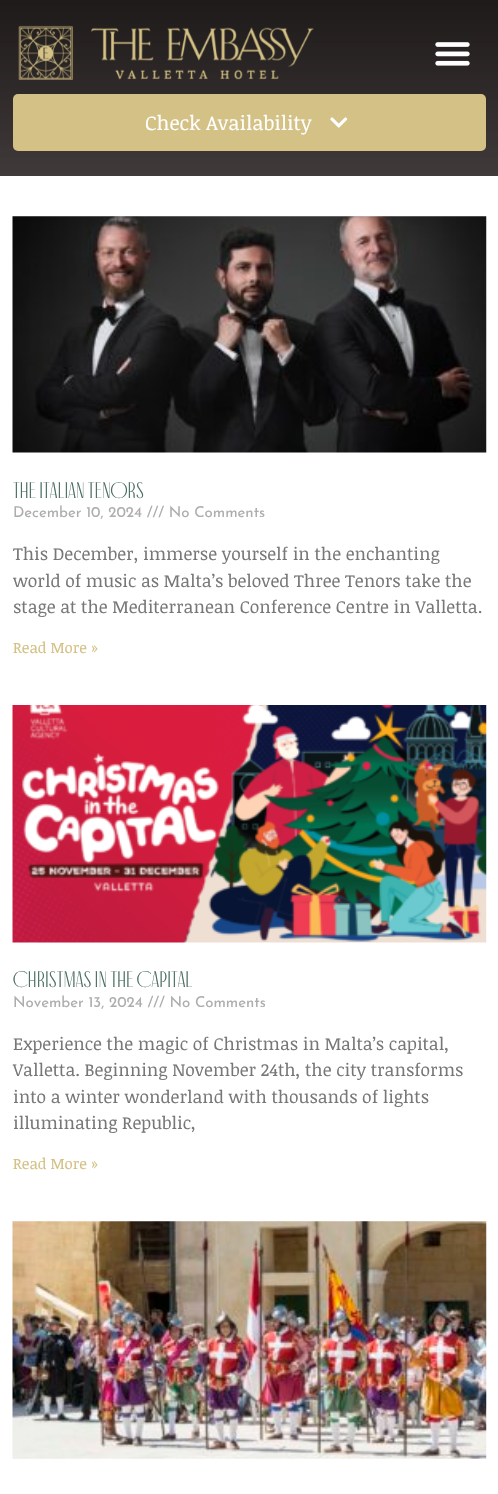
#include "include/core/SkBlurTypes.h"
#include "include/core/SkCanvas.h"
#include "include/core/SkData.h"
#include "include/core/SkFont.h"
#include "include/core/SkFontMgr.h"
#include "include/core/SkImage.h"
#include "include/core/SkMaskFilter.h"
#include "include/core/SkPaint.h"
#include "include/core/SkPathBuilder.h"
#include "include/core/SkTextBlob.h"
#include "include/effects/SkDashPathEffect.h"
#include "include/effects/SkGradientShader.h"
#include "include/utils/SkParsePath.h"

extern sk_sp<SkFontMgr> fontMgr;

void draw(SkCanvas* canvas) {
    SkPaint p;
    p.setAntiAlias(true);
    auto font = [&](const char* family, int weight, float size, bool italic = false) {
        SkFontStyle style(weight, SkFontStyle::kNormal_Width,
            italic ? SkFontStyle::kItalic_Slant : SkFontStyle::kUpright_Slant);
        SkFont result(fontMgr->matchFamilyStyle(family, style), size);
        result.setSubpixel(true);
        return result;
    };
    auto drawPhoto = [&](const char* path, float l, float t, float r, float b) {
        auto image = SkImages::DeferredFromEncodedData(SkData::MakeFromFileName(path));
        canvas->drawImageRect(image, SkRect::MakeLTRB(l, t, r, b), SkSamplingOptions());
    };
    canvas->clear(0xFFFFFFFF);
    {
        const SkColor colors[] = {0xFF3E3535, 0xFF4B4343};
        const float stops[] = {0, 1};
        const SkPoint ends[] = {{249, 0}, {249, 176}};
        p.setShader(SkGradientShader::MakeLinear(ends, colors, stops, 2, SkTileMode::kClamp));
        p.setAlpha(255);
    }
    canvas->drawRect(SkRect::MakeLTRB(0, 0, 498, 176), p);
    {
        const SkColor colors[] = {0x80000000, 0x24000000};
        const float stops[] = {0, 1};
        const SkPoint ends[] = {{249, 0}, {249, 176}};
        p.setShader(SkGradientShader::MakeLinear(ends, colors, stops, 2, SkTileMode::kClamp));
        p.setAlpha(255);
    }
    canvas->drawRect(SkRect::MakeLTRB(0, 0, 498, 176), p);
    drawPhoto("media/1.png", 18, 25, 314, 80);
    drawPhoto("media/2.png", 435, 42, 470, 66);
    p.setShader(nullptr);
    p.setColor(0xFFD4C185);
    canvas->drawRoundRect(SkRect::MakeLTRB(13, 94, 486, 151), 5, 5, p);
    auto font1 = font("Noticia Text", 400, 20);
    p.setColor(0xFFFFFFFF);
    canvas->drawString("Check Availability", 145, 130, font1, p);
    drawPhoto("media/3.png", 330, 117, 348, 128);
    drawPhoto("media/4.png", 12, 216, 487, 453);
    auto font2 = font("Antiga", 400, 22.5f);
    p.setColor(0xFF496C60);
    canvas->drawString("The Italian Tenors", 13, 498, font2, p);
    auto font3 = font("Josefin Sans", 400, 15);
    p.setColor(0xFFADADAD);
    canvas->drawString("December 10, 2024 /// No Comments", 13, 517, font3, p);
    canvas->save();
    canvas->clipRect(SkRect::MakeLTRB(13, 216, 486, 661));
    auto font4 = font("Noticia Text", 400, 17.5f);
    p.setColor(0xFF777777);
    canvas->drawString("This December, immerse yourself in the enchanting", 13, 560, font4, p);
    canvas->restore();
    canvas->drawString("world of music as Malta’s beloved Three Tenors take the", 13, 587, font4, p);
    canvas->drawString("stage at the Mediterranean Conference Centre in Valletta.", 13, 613, font4, p);
    auto font5 = font("Noticia Text", 400, 15);
    p.setColor(0xFFD4C185);
    canvas->drawString("Read More »", 13, 653, font5, p);
    drawPhoto("media/5.png", 12, 705, 487, 943);
    p.setColor(0xFF496C60);
    canvas->drawString("Christmas in the Capital", 13, 987, font2, p);
    p.setColor(0xFFADADAD);
    canvas->drawString("November 13, 2024 /// No Comments", 13, 1007, font3, p);
    p.setColor(0xFF777777);
    {
        const struct { const char* s; float x, y; } items[] = {
            {"Experience the magic of Christmas in Malta’s capital,", 13, 1050},
            {"Valletta. Beginning November 24th, the city transforms", 13, 1076},
            {"into a winter wonderland with thousands of lights", 13, 1103},
            {"illuminating Republic,", 13, 1129},
        };
        for (auto [s, x, y] : items) {
            canvas->drawString(s, x, y, font4, p);
        }
    }
    p.setColor(0xFFD4C185);
    canvas->drawString("Read More »", 13, 1169, font5, p);
    drawPhoto("media/6.png", 12, 1221, 487, 1459);
}
